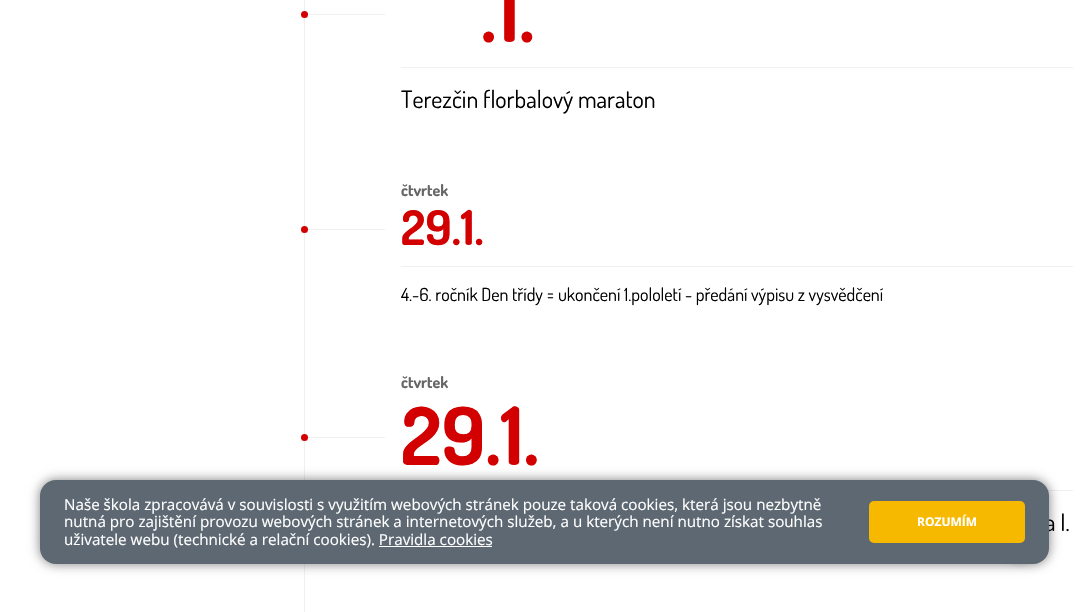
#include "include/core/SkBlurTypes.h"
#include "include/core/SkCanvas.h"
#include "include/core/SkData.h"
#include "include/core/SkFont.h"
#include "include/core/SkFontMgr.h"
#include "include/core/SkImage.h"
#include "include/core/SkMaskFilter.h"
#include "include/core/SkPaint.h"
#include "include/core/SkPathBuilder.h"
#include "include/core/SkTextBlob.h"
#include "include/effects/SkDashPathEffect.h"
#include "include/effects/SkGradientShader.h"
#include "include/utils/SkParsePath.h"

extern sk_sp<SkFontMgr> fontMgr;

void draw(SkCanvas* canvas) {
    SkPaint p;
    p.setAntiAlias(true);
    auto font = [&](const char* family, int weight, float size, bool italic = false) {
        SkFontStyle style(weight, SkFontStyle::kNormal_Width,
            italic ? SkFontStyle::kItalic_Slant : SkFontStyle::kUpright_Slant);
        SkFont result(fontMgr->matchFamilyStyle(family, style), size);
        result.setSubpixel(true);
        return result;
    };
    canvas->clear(0xFFFFFFFF);
    p.setColor(0xFFF0F0F0);
    canvas->drawRect(SkRect::MakeLTRB(304, 0, 305, 612), p);
    canvas->drawRect(SkRect::MakeLTRB(305, 14, 385, 15), p);
    p.setColor(0xFFD20000);
    canvas->drawCircle(304.5f, 14.5f, 3.5f, p);
    auto font1 = font("Dosis", 700, 80);
    canvas->drawString(".1.", 481, 42, font1, p);
    p.setColor(0xFFF0F0F0);
    canvas->drawRect(SkRect::MakeLTRB(401, 67, 1073, 68), p);
    auto font2 = font("Dosis", 400, 24);
    p.setColor(0xFF000000);
    canvas->drawString("Terezčin florbalový maraton", 401, 108, font2, p);
    auto font3 = font("Dosis", 700, 16);
    p.setColor(0xFF666666);
    canvas->drawString("čtvrtek", 401, 196, font3, p);
    p.setColor(0xFFF0F0F0);
    canvas->drawRect(SkRect::MakeLTRB(305, 229, 385, 230), p);
    p.setColor(0xFFD20000);
    canvas->drawCircle(304.5f, 229.5f, 3.5f, p);
    auto font4 = font("Dosis", 700, 48);
    canvas->drawString("29.1.", 401, 245, font4, p);
    p.setColor(0xFFF0F0F0);
    canvas->drawRect(SkRect::MakeLTRB(401, 266, 1073, 267), p);
    auto font5 = font("Dosis", 400, 18);
    p.setColor(0xFF000000);
    canvas->drawString("4.-6. ročník Den třídy = ukončení 1.pololetí - předání výpisu z vysvědčení", 401, 301, font5, p);
    p.setColor(0xFF666666);
    canvas->drawString("čtvrtek", 401, 388, font3, p);
    p.setColor(0xFFF0F0F0);
    canvas->drawRect(SkRect::MakeLTRB(305, 437, 385, 438), p);
    p.setColor(0xFFD20000);
    canvas->drawCircle(304.5f, 437.5f, 3.5f, p);
    canvas->drawString("29.1.", 401, 465, font1, p);
    p.setColor(0xFFF0F0F0);
    canvas->drawRect(SkRect::MakeLTRB(1047, 490, 1073, 491), p);
    p.setColor(0xFF000000);
    canvas->drawString("a I.", 1045, 531, font2, p);
    p.setColor(0x80000000);
    p.setMaskFilter(SkMaskFilter::MakeBlur(kNormal_SkBlurStyle, 6));
    canvas->drawRoundRect(SkRect::MakeLTRB(40, 480, 1049, 564), 16, 16, p);
    p.setMaskFilter(nullptr);
    p.setColor(0x12000000);
    p.setMaskFilter(SkMaskFilter::MakeBlur(kNormal_SkBlurStyle, 2));
    canvas->drawRoundRect(SkRect::MakeLTRB(999, 524, 1041, 566), 21, 21, p);
    p.setMaskFilter(nullptr);
    p.setColor(0xFF5D6872);
    canvas->drawRoundRect(SkRect::MakeLTRB(40, 480, 1049, 564), 16, 16, p);
    auto font6 = font("Open Sans", 400, 15.2f);
    p.setColor(0xFFFFFFFF);
    {
        const struct { const char* s; float x, y; } items[] = {
            {"Naše škola zpracovává v souvislosti s využitím webových stránek pouze taková cookies, která jsou nezbytně", 64, 510},
            {"nutná pro zajištění provozu webových stránek a internetových služeb, a u kterých není nutno získat souhlas", 64, 527},
            {"uživatele webu (technické a relační cookies). Pravidla cookies", 64, 545},
        };
        for (auto [s, x, y] : items) {
            canvas->drawString(s, x, y, font6, p);
        }
    }
    canvas->drawRect(SkRect::MakeLTRB(379, 546, 492, 547), p);
    p.setColor(0xFFF6B900);
    canvas->drawRoundRect(SkRect::MakeLTRB(869, 501, 1025, 543), 5, 5, p);
    auto font7 = font("Open Sans", 700, 12);
    p.setColor(0xFFFFFFFF);
    canvas->drawString("ROZUMÍM", 917, 526, font7, p);
}
